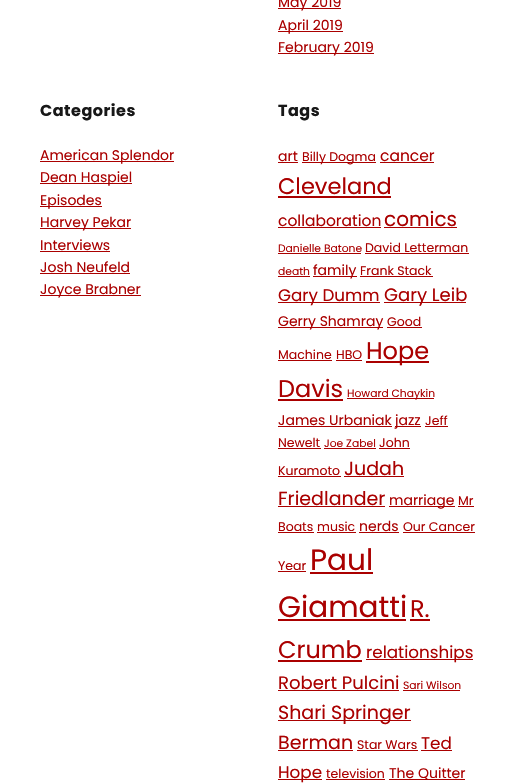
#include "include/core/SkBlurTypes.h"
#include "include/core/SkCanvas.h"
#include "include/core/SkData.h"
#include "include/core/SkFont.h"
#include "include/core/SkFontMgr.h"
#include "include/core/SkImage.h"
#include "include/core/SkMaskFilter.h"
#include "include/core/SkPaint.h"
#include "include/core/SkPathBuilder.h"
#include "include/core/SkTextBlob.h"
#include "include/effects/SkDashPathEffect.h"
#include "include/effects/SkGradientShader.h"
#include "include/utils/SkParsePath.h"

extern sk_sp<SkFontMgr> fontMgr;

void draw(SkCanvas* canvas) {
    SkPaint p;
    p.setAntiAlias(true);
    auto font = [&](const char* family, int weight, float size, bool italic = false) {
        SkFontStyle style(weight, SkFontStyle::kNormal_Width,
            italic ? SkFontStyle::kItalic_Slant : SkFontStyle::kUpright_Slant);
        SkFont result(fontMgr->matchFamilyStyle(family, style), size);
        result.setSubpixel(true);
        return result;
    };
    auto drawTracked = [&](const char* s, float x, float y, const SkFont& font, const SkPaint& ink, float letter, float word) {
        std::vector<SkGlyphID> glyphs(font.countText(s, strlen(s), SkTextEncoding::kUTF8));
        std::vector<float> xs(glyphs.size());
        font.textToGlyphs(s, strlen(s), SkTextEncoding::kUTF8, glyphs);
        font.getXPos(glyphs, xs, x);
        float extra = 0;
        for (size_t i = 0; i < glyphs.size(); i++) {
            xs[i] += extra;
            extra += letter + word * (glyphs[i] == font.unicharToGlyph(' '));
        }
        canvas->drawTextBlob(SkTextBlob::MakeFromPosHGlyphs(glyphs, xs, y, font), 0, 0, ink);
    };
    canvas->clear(0xFFFFFFFF);
    p.setColor(0xFFAA0000);
    canvas->drawRect(SkRect::MakeLTRB(278, 8, 341, 9), p);
    auto font1 = font("Poppins", 400, 14);
    canvas->drawString("May 2019", 278, 7, font1, p);
    canvas->drawRect(SkRect::MakeLTRB(278, 31, 343, 32), p);
    canvas->drawString("April 2019", 278, 30, font1, p);
    canvas->drawRect(SkRect::MakeLTRB(278, 53, 374, 54), p);
    canvas->drawString("February 2019", 278, 52, font1, p);
    auto font2 = font("Poppins", 700, 16);
    p.setColor(0xFF181818);
    drawTracked("Categories", 40, 116, font2, p, 0.5f, 0);
    p.setColor(0xFFAA0000);
    canvas->drawRect(SkRect::MakeLTRB(40, 161, 174, 162), p);
    canvas->drawString("American Splendor", 40, 160, font1, p);
    canvas->drawRect(SkRect::MakeLTRB(40, 183, 132, 184), p);
    canvas->drawString("Dean Haspiel", 40, 182, font1, p);
    canvas->drawRect(SkRect::MakeLTRB(40, 206, 102, 207), p);
    canvas->drawString("Episodes", 40, 205, font1, p);
    canvas->drawRect(SkRect::MakeLTRB(40, 228, 131, 229), p);
    canvas->drawString("Harvey Pekar", 40, 227, font1, p);
    canvas->drawString("Interviews", 40, 250, font1, p);
    canvas->drawRect(SkRect::MakeLTRB(40, 251, 110, 252), p);
    canvas->drawString("Josh Neufeld", 40, 272, font1, p);
    canvas->drawRect(SkRect::MakeLTRB(40, 273, 130, 274), p);
    canvas->drawRect(SkRect::MakeLTRB(40, 295, 141, 296), p);
    canvas->drawString("Joyce Brabner", 40, 294, font1, p);
    p.setColor(0xFF181818);
    drawTracked("Tags", 278, 116, font2, p, 0.5f, 0);
    p.setColor(0xFFAA0000);
    canvas->drawString("art", 278, 161, font1, p);
    canvas->drawRect(SkRect::MakeLTRB(278, 162, 298, 163), p);
    canvas->drawRect(SkRect::MakeLTRB(302, 162, 376, 163), p);
    auto font3 = font("Poppins", 400, 12.5f);
    canvas->drawString("Billy Dogma", 302, 161, font3, p);
    auto font4 = font("Poppins", 400, 15.5f);
    canvas->drawString("cancer", 380, 161, font4, p);
    canvas->drawRect(SkRect::MakeLTRB(380, 162, 434, 163), p);
    auto font5 = font("Poppins", 400, 22.5f);
    canvas->drawString("Cleveland", 278, 194, font5, p);
    canvas->drawRect(SkRect::MakeLTRB(278, 196, 391, 198), p);
    canvas->drawString("collaboration", 278, 226, font4, p);
    canvas->drawRect(SkRect::MakeLTRB(278, 227, 381, 228), p);
    auto font6 = font("Poppins", 400, 20);
    canvas->drawString("comics", 384, 226, font6, p);
    canvas->drawRect(SkRect::MakeLTRB(384, 227, 457, 228), p);
    auto font7 = font("Poppins", 400, 10.75f);
    canvas->drawString("Danielle Batone", 278, 252, font7, p);
    canvas->drawRect(SkRect::MakeLTRB(278, 253, 361, 254), p);
    canvas->drawString("David Letterman", 365, 252, font3, p);
    canvas->drawRect(SkRect::MakeLTRB(365, 253, 469, 254), p);
    canvas->drawString("death", 278, 275, font7, p);
    canvas->drawRect(SkRect::MakeLTRB(278, 276, 310, 277), p);
    canvas->drawRect(SkRect::MakeLTRB(313, 276, 357, 277), p);
    canvas->drawString("family", 313, 275, font1, p);
    canvas->drawString("Frank Stack", 360, 275, font3, p);
    canvas->drawRect(SkRect::MakeLTRB(360, 276, 433, 277), p);
    canvas->drawRect(SkRect::MakeLTRB(278, 302, 380, 303), p);
    auto font8 = font("Poppins", 400, 16.75f);
    canvas->drawString("Gary Dumm", 278, 301, font8, p);
    canvas->drawRect(SkRect::MakeLTRB(384, 302, 466, 303), p);
    auto font9 = font("Poppins", 400, 18);
    canvas->drawString("Gary Leib", 384, 301, font9, p);
    canvas->drawRect(SkRect::MakeLTRB(278, 327, 383, 328), p);
    canvas->drawString("Gerry Shamray", 278, 326, font1, p);
    canvas->drawString("Good", 387, 326, font3, p);
    canvas->drawRect(SkRect::MakeLTRB(387, 327, 422, 328), p);
    canvas->drawString("Machine", 278, 359, font3, p);
    canvas->drawRect(SkRect::MakeLTRB(278, 360, 332, 361), p);
    canvas->drawString("HBO", 336, 359, font3, p);
    canvas->drawRect(SkRect::MakeLTRB(336, 360, 362, 361), p);
    canvas->drawRect(SkRect::MakeLTRB(366, 361, 429, 363), p);
    auto font10 = font("Poppins", 400, 24);
    canvas->drawString("Hope", 366, 359, font10, p);
    canvas->drawString("Davis", 278, 397, font10, p);
    canvas->drawRect(SkRect::MakeLTRB(278, 399, 343, 401), p);
    canvas->drawRect(SkRect::MakeLTRB(347, 398, 434, 399), p);
    canvas->drawString("Howard Chaykin", 347, 397, font7, p);
    canvas->drawString("James Urbaniak", 278, 425, font1, p);
    canvas->drawRect(SkRect::MakeLTRB(278, 426, 392, 427), p);
    canvas->drawRect(SkRect::MakeLTRB(395, 426, 421, 427), p);
    canvas->drawString("jazz", 395, 425, font1, p);
    canvas->drawString("Jeff", 425, 425, font3, p);
    canvas->drawRect(SkRect::MakeLTRB(425, 426, 448, 427), p);
    canvas->drawString("Newelt", 278, 447, font3, p);
    canvas->drawRect(SkRect::MakeLTRB(278, 448, 321, 449), p);
    canvas->drawString("Joe Zabel", 324, 447, font7, p);
    canvas->drawRect(SkRect::MakeLTRB(324, 448, 376, 449), p);
    canvas->drawString("John", 379, 447, font3, p);
    canvas->drawRect(SkRect::MakeLTRB(379, 448, 410, 449), p);
    canvas->drawString("Kuramoto", 278, 475, font3, p);
    canvas->drawRect(SkRect::MakeLTRB(278, 476, 341, 477), p);
    auto font11 = font("Poppins", 400, 19);
    canvas->drawString("Judah", 344, 475, font11, p);
    canvas->drawRect(SkRect::MakeLTRB(344, 476, 404, 477), p);
    canvas->drawString("Friedlander", 278, 505, font11, p);
    canvas->drawRect(SkRect::MakeLTRB(278, 506, 385, 507), p);
    canvas->drawRect(SkRect::MakeLTRB(389, 506, 455, 507), p);
    canvas->drawString("marriage", 389, 505, font1, p);
    canvas->drawString("Mr", 458, 505, font3, p);
    canvas->drawRect(SkRect::MakeLTRB(458, 506, 474, 507), p);
    canvas->drawString("Boats", 278, 531, font3, p);
    canvas->drawRect(SkRect::MakeLTRB(278, 532, 314, 533), p);
    canvas->drawString("music", 317, 531, font3, p);
    canvas->drawRect(SkRect::MakeLTRB(317, 532, 356, 533), p);
    canvas->drawString("nerds", 359, 531, font1, p);
    canvas->drawRect(SkRect::MakeLTRB(359, 532, 399, 533), p);
    canvas->drawString("Our Cancer", 403, 531, font3, p);
    canvas->drawRect(SkRect::MakeLTRB(403, 532, 475, 533), p);
    canvas->drawString("Year", 278, 570, font3, p);
    canvas->drawRect(SkRect::MakeLTRB(278, 571, 306, 572), p);
    auto font12 = font("Poppins", 400, 29.5f);
    canvas->drawString("Paul", 310, 570, font12, p);
    canvas->drawRect(SkRect::MakeLTRB(310, 572, 373, 574), p);
    canvas->drawString("Giamatti", 278, 617, font12, p);
    canvas->drawRect(SkRect::MakeLTRB(278, 619, 406, 621), p);
    canvas->drawString("R.", 410, 617, font10, p);
    canvas->drawRect(SkRect::MakeLTRB(410, 619, 430, 621), p);
    canvas->drawString("Crumb", 278, 658, font10, p);
    canvas->drawRect(SkRect::MakeLTRB(278, 660, 362, 662), p);
    canvas->drawRect(SkRect::MakeLTRB(366, 659, 473, 660), p);
    canvas->drawString("relationships", 366, 658, font8, p);
    canvas->drawString("Robert Pulcini", 278, 689, font9, p);
    canvas->drawRect(SkRect::MakeLTRB(278, 690, 399, 691), p);
    canvas->drawString("Sari Wilson", 403, 689, font7, p);
    canvas->drawRect(SkRect::MakeLTRB(403, 690, 460, 691), p);
    canvas->drawRect(SkRect::MakeLTRB(278, 720, 411, 721), p);
    canvas->drawString("Shari Springer", 278, 719, font11, p);
    canvas->drawString("Berman", 278, 749, font11, p);
    canvas->drawRect(SkRect::MakeLTRB(278, 750, 353, 751), p);
    canvas->drawString("Star Wars", 357, 749, font3, p);
    canvas->drawRect(SkRect::MakeLTRB(357, 750, 418, 751), p);
    canvas->drawString("Ted", 421, 749, font8, p);
    canvas->drawRect(SkRect::MakeLTRB(421, 750, 452, 751), p);
    canvas->drawRect(SkRect::MakeLTRB(278, 779, 322, 780), p);
    canvas->drawString("Hope", 278, 778, font8, p);
    canvas->drawString("television", 326, 778, font3, p);
    canvas->drawRect(SkRect::MakeLTRB(326, 779, 385, 780), p);
    canvas->drawRect(SkRect::MakeLTRB(389, 779, 465, 780), p);
    canvas->drawString("The Quitter", 389, 778, font1, p);
}
